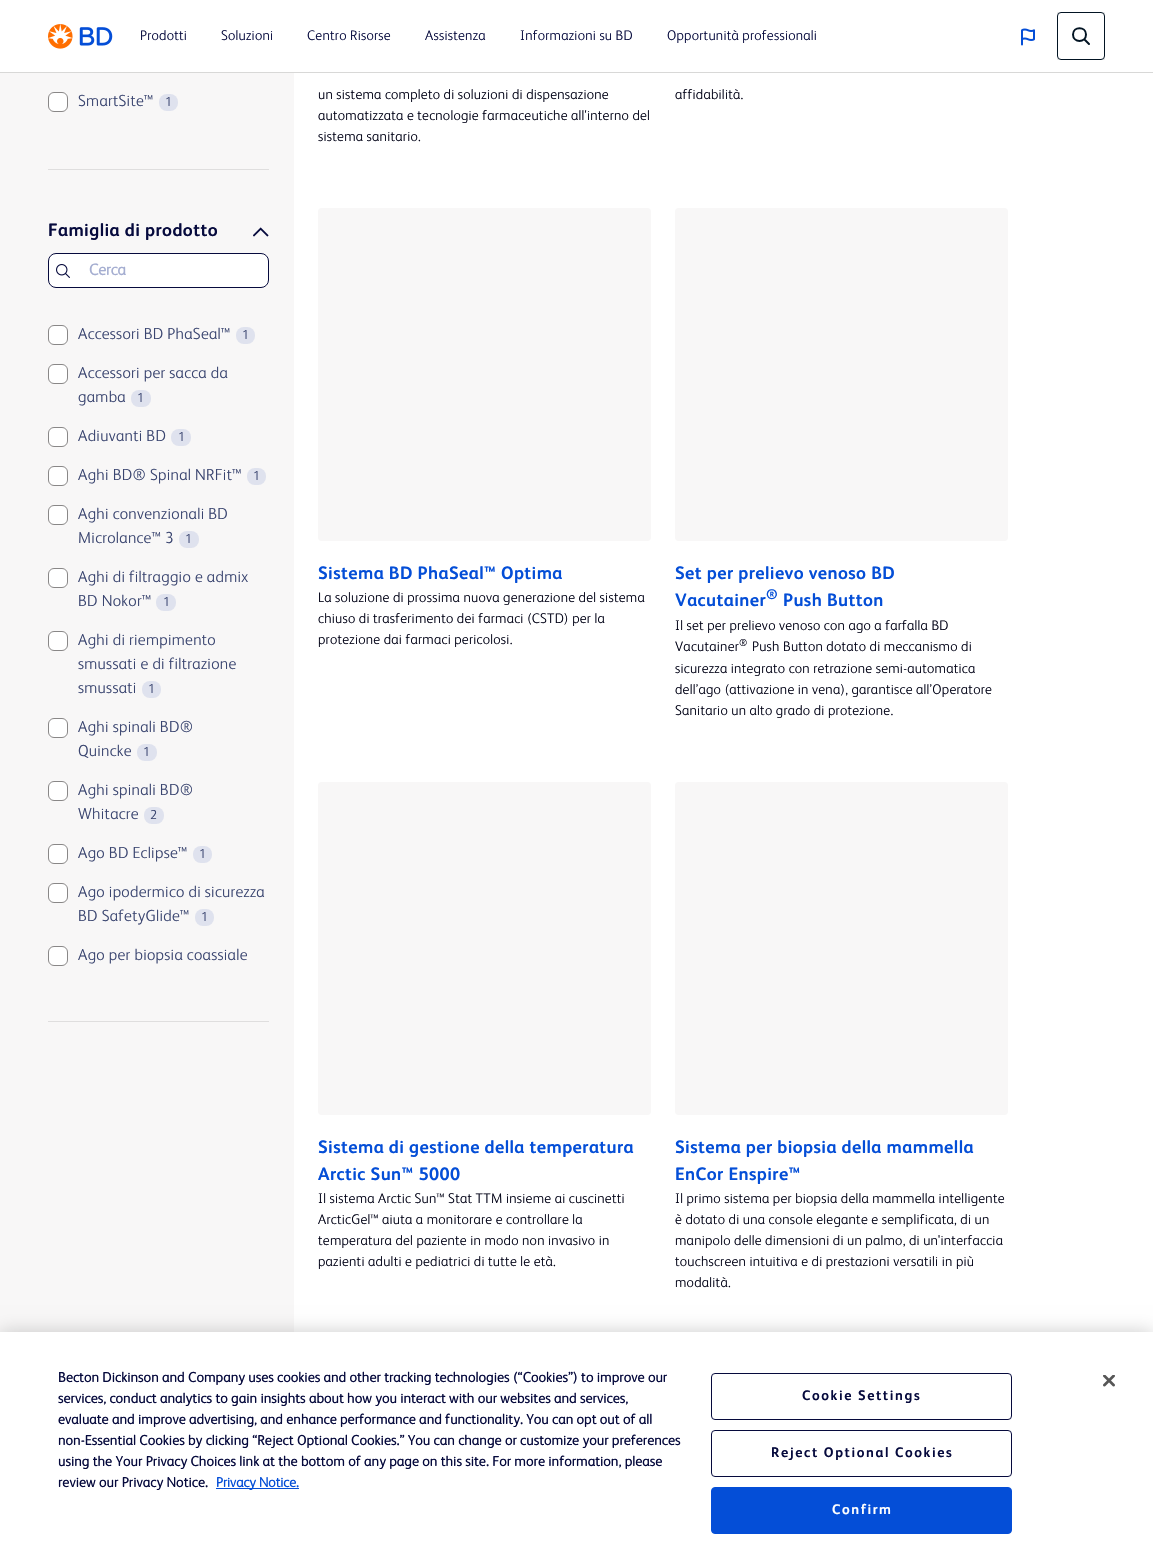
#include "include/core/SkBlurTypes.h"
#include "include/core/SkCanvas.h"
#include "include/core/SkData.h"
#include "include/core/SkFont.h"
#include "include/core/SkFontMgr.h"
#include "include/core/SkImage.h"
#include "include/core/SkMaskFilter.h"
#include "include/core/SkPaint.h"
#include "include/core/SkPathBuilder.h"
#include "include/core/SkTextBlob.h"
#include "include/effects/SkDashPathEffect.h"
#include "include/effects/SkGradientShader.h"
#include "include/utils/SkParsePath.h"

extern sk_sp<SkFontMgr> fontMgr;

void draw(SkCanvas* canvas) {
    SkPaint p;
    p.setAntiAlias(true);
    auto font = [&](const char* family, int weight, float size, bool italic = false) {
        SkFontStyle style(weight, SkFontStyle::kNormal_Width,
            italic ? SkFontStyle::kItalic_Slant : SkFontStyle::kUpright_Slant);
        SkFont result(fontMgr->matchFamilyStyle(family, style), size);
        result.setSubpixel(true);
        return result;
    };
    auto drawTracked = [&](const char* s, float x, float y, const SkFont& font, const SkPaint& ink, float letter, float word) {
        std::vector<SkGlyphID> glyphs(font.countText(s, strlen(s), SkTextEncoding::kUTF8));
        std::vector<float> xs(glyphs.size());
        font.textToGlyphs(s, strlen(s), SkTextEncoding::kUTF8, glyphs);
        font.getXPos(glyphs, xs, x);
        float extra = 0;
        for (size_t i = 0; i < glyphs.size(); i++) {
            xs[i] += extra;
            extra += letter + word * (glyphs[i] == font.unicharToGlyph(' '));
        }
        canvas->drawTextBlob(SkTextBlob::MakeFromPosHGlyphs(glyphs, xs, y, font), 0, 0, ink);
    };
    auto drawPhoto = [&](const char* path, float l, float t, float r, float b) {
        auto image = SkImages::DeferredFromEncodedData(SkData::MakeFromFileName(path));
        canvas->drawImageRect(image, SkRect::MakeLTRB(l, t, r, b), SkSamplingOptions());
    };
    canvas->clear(0xFFFFFFFF);
    p.setColor(0xFFD8D8D7);
    canvas->drawRect(SkRect::MakeLTRB(0, 72, 1153, 73), p);
    drawPhoto("media/1.png", 48, 24, 113, 49);
    auto font1 = font("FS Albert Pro", 300, 14);
    p.setColor(0xFF060A3D);
    {
        const struct { const char* s; float x, y; } items[] = {
            {"Prodotti", 140, 40},
            {"Soluzioni", 221, 40},
            {"Centro Risorse", 307, 40},
            {"Assistenza", 425, 40},
            {"Informazioni su BD", 520, 40},
            {"Opportunità professionali", 667, 40},
        };
        for (auto [s, x, y] : items) {
            drawTracked(s, x, y, font1, p, 0.24f, 0);
        }
    }
    drawPhoto("media/2.png", 1021, 28, 1035, 46);
    p.setColor(0xFFEFEFEF);
    canvas->drawRect(SkRect::MakeLTRB(1057, 12, 1105, 60), p);
    p.setColor(0xFFFFFFFF);
    canvas->drawRoundRect(SkRect::MakeLTRB(1057.5f, 12.5f, 1104.5f, 59.5f), 3.5f, 3.5f, p);
    p.setStyle(SkPaint::kStroke_Style);
    p.setStrokeWidth(1);
    p.setColor(0xFF021423);
    canvas->drawRoundRect(SkRect::MakeLTRB(1057.5f, 12.5f, 1104.5f, 59.5f), 3.5f, 3.5f, p);
    p.setStrokeWidth(2);
    p.setStrokeCap(SkPaint::kRound_Cap);
    p.setStrokeJoin(SkPaint::kRound_Join);
    canvas->drawPath(SkPathBuilder().moveTo(1086, 34.5f).cubicTo(1086, 43, 1073, 43, 1073, 34.5f).cubicTo(1073, 26, 1086, 26, 1086, 34.5f).close().moveTo(1089, 44).lineTo(1084.5f, 39.5f).detach(), p);
    p.setStyle(SkPaint::kFill_Style);
    p.setColor(0xFFF8F7F7);
    canvas->drawRect(SkRect::MakeLTRB(0, 73, 294, 1332), p);
    p.setColor(0xFFDFDEDE);
    canvas->drawRect(SkRect::MakeLTRB(48, 169, 269, 170), p);
    p.setColor(0xFFFFFFFF);
    canvas->drawRoundRect(SkRect::MakeLTRB(48.5f, 92.5f, 67.5f, 111.5f), 5.5f, 5.5f, p);
    p.setStyle(SkPaint::kStroke_Style);
    p.setStrokeWidth(1);
    p.setStrokeCap(SkPaint::kButt_Cap);
    p.setStrokeJoin(SkPaint::kMiter_Join);
    p.setColor(0xFF898787);
    canvas->drawRoundRect(SkRect::MakeLTRB(48.5f, 92.5f, 67.5f, 111.5f), 5.5f, 5.5f, p);
    auto font2 = font("FS Albert Pro", 300, 16);
    p.setStyle(SkPaint::kFill_Style);
    p.setColor(0xFF3A4570);
    drawTracked("SmartSite™", 78, 106, font2, p, 0.3f, 0);
    p.setColor(0xFFDFE2EE);
    canvas->drawRoundRect(SkRect::MakeLTRB(159, 94, 178, 111), 8, 8, p);
    auto font3 = font("FS Albert Pro", 300, 13);
    p.setColor(0xFF3A4570);
    canvas->drawString("1", 165, 106, font3, p);
    p.setColor(0xFFDFDEDE);
    canvas->drawRect(SkRect::MakeLTRB(48, 1021, 269, 1022), p);
    auto font4 = font("FS Albert Pro", 700, 18);
    p.setColor(0xFF060A3D);
    drawTracked("Famiglia di prodotto", 48, 236, font4, p, 0.4f, 0);
    drawPhoto("media/3.png", 253, 227, 269, 237);
    p.setColor(0xFFFFFFFF);
    canvas->drawRoundRect(SkRect::MakeLTRB(48.5f, 253.5f, 268.5f, 287.5f), 7.5f, 7.5f, p);
    p.setStyle(SkPaint::kStroke_Style);
    p.setColor(0xFF060A3D);
    canvas->drawRoundRect(SkRect::MakeLTRB(48.5f, 253.5f, 268.5f, 287.5f), 7.5f, 7.5f, p);
    drawPhoto("media/4.png", 56, 264, 70, 278);
    auto font5 = font("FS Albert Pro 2", 700, 16);
    p.setStyle(SkPaint::kFill_Style);
    p.setColor(0xFFA5AED1);
    canvas->drawString("Cerca", 89, 275, font5, p);
    p.setColor(0xFFFFFFFF);
    canvas->drawRoundRect(SkRect::MakeLTRB(48.5f, 325.5f, 67.5f, 344.5f), 5.5f, 5.5f, p);
    p.setStyle(SkPaint::kStroke_Style);
    p.setColor(0xFF898787);
    canvas->drawRoundRect(SkRect::MakeLTRB(48.5f, 325.5f, 67.5f, 344.5f), 5.5f, 5.5f, p);
    p.setStyle(SkPaint::kFill_Style);
    p.setColor(0xFF3A4570);
    drawTracked("Accessori BD PhaSeal™", 78, 339, font2, p, 0.3f, 0);
    p.setColor(0xFFDFE2EE);
    canvas->drawRoundRect(SkRect::MakeLTRB(236, 327, 255, 344), 8, 8, p);
    p.setColor(0xFF3A4570);
    canvas->drawString("1", 242, 339, font3, p);
    p.setColor(0xFFFFFFFF);
    canvas->drawRoundRect(SkRect::MakeLTRB(48.5f, 364.5f, 67.5f, 383.5f), 5.5f, 5.5f, p);
    p.setStyle(SkPaint::kStroke_Style);
    p.setColor(0xFF898787);
    canvas->drawRoundRect(SkRect::MakeLTRB(48.5f, 364.5f, 67.5f, 383.5f), 5.5f, 5.5f, p);
    p.setStyle(SkPaint::kFill_Style);
    p.setColor(0xFF3A4570);
    drawTracked("Accessori per sacca da", 78, 378, font2, p, 0.3f, 0);
    drawTracked("gamba", 78, 402, font2, p, 0.3f, 0);
    p.setColor(0xFFDFE2EE);
    canvas->drawRoundRect(SkRect::MakeLTRB(131, 390, 151, 407), 8, 8, p);
    p.setColor(0xFF3A4570);
    canvas->drawString("1", 137, 402, font3, p);
    p.setColor(0xFFFFFFFF);
    canvas->drawRoundRect(SkRect::MakeLTRB(48.5f, 427.5f, 67.5f, 446.5f), 5.5f, 5.5f, p);
    p.setStyle(SkPaint::kStroke_Style);
    p.setColor(0xFF898787);
    canvas->drawRoundRect(SkRect::MakeLTRB(48.5f, 427.5f, 67.5f, 446.5f), 5.5f, 5.5f, p);
    p.setStyle(SkPaint::kFill_Style);
    p.setColor(0xFF3A4570);
    drawTracked("Adiuvanti BD", 78, 441, font2, p, 0.3f, 0);
    p.setColor(0xFFDFE2EE);
    canvas->drawRoundRect(SkRect::MakeLTRB(171, 429, 191, 446), 8, 8, p);
    p.setColor(0xFF3A4570);
    canvas->drawString("1", 178, 441, font3, p);
    p.setColor(0xFFFFFFFF);
    canvas->drawRoundRect(SkRect::MakeLTRB(48.5f, 466.5f, 67.5f, 485.5f), 5.5f, 5.5f, p);
    p.setStyle(SkPaint::kStroke_Style);
    p.setColor(0xFF898787);
    canvas->drawRoundRect(SkRect::MakeLTRB(48.5f, 466.5f, 67.5f, 485.5f), 5.5f, 5.5f, p);
    p.setStyle(SkPaint::kFill_Style);
    p.setColor(0xFF3A4570);
    drawTracked("Aghi BD® Spinal NRFit™", 78, 480, font2, p, 0.3f, 0);
    p.setColor(0xFFDFE2EE);
    canvas->drawRoundRect(SkRect::MakeLTRB(247, 468, 266, 485), 8, 8, p);
    p.setColor(0xFF3A4570);
    canvas->drawString("1", 253, 480, font3, p);
    p.setColor(0xFFFFFFFF);
    canvas->drawRoundRect(SkRect::MakeLTRB(48.5f, 505.5f, 67.5f, 524.5f), 5.5f, 5.5f, p);
    p.setStyle(SkPaint::kStroke_Style);
    p.setColor(0xFF898787);
    canvas->drawRoundRect(SkRect::MakeLTRB(48.5f, 505.5f, 67.5f, 524.5f), 5.5f, 5.5f, p);
    p.setStyle(SkPaint::kFill_Style);
    p.setColor(0xFF3A4570);
    drawTracked("Aghi convenzionali BD", 78, 519, font2, p, 0.3f, 0);
    drawTracked("Microlance™ 3", 78, 543, font2, p, 0.3f, 0);
    p.setColor(0xFFDFE2EE);
    canvas->drawRoundRect(SkRect::MakeLTRB(179, 531, 199, 548), 8, 8, p);
    p.setColor(0xFF3A4570);
    canvas->drawString("1", 185, 543, font3, p);
    p.setColor(0xFFFFFFFF);
    canvas->drawRoundRect(SkRect::MakeLTRB(48.5f, 568.5f, 67.5f, 587.5f), 5.5f, 5.5f, p);
    p.setStyle(SkPaint::kStroke_Style);
    p.setColor(0xFF898787);
    canvas->drawRoundRect(SkRect::MakeLTRB(48.5f, 568.5f, 67.5f, 587.5f), 5.5f, 5.5f, p);
    p.setStyle(SkPaint::kFill_Style);
    p.setColor(0xFF3A4570);
    drawTracked("Aghi di filtraggio e admix", 78, 582, font2, p, 0.3f, 0);
    drawTracked("BD Nokor™", 78, 606, font2, p, 0.3f, 0);
    p.setColor(0xFFDFE2EE);
    canvas->drawRoundRect(SkRect::MakeLTRB(156, 594, 176, 611), 8, 8, p);
    p.setColor(0xFF3A4570);
    canvas->drawString("1", 163, 606, font3, p);
    p.setColor(0xFFFFFFFF);
    canvas->drawRoundRect(SkRect::MakeLTRB(48.5f, 631.5f, 67.5f, 650.5f), 5.5f, 5.5f, p);
    p.setStyle(SkPaint::kStroke_Style);
    p.setColor(0xFF898787);
    canvas->drawRoundRect(SkRect::MakeLTRB(48.5f, 631.5f, 67.5f, 650.5f), 5.5f, 5.5f, p);
    p.setStyle(SkPaint::kFill_Style);
    p.setColor(0xFF3A4570);
    {
        const struct { const char* s; float x, y; } items[] = {
            {"Aghi di riempimento", 78, 645},
            {"smussati e di filtrazione", 78, 669},
            {"smussati", 78, 693},
        };
        for (auto [s, x, y] : items) {
            drawTracked(s, x, y, font2, p, 0.3f, 0);
        }
    }
    p.setColor(0xFFDFE2EE);
    canvas->drawRoundRect(SkRect::MakeLTRB(142, 681, 161, 698), 8, 8, p);
    p.setColor(0xFF3A4570);
    canvas->drawString("1", 148, 693, font3, p);
    p.setColor(0xFFFFFFFF);
    canvas->drawRoundRect(SkRect::MakeLTRB(48.5f, 718.5f, 67.5f, 737.5f), 5.5f, 5.5f, p);
    p.setStyle(SkPaint::kStroke_Style);
    p.setColor(0xFF898787);
    canvas->drawRoundRect(SkRect::MakeLTRB(48.5f, 718.5f, 67.5f, 737.5f), 5.5f, 5.5f, p);
    p.setStyle(SkPaint::kFill_Style);
    p.setColor(0xFF3A4570);
    drawTracked("Aghi spinali BD®", 78, 732, font2, p, 0.3f, 0);
    drawTracked("Quincke", 78, 756, font2, p, 0.3f, 0);
    p.setColor(0xFFDFE2EE);
    canvas->drawRoundRect(SkRect::MakeLTRB(137, 744, 157, 761), 8, 8, p);
    p.setColor(0xFF3A4570);
    canvas->drawString("1", 143, 756, font3, p);
    p.setColor(0xFFFFFFFF);
    canvas->drawRoundRect(SkRect::MakeLTRB(48.5f, 781.5f, 67.5f, 800.5f), 5.5f, 5.5f, p);
    p.setStyle(SkPaint::kStroke_Style);
    p.setColor(0xFF898787);
    canvas->drawRoundRect(SkRect::MakeLTRB(48.5f, 781.5f, 67.5f, 800.5f), 5.5f, 5.5f, p);
    p.setStyle(SkPaint::kFill_Style);
    p.setColor(0xFF3A4570);
    drawTracked("Aghi spinali BD®", 78, 795, font2, p, 0.3f, 0);
    drawTracked("Whitacre", 78, 819, font2, p, 0.3f, 0);
    p.setColor(0xFFDFE2EE);
    canvas->drawRoundRect(SkRect::MakeLTRB(144, 807, 164, 824), 8, 8, p);
    p.setColor(0xFF3A4570);
    canvas->drawString("2", 150, 819, font3, p);
    p.setColor(0xFFFFFFFF);
    canvas->drawRoundRect(SkRect::MakeLTRB(48.5f, 844.5f, 67.5f, 863.5f), 5.5f, 5.5f, p);
    p.setStyle(SkPaint::kStroke_Style);
    p.setColor(0xFF898787);
    canvas->drawRoundRect(SkRect::MakeLTRB(48.5f, 844.5f, 67.5f, 863.5f), 5.5f, 5.5f, p);
    p.setStyle(SkPaint::kFill_Style);
    p.setColor(0xFF3A4570);
    drawTracked("Ago BD Eclipse™", 78, 858, font2, p, 0.3f, 0);
    p.setColor(0xFFDFE2EE);
    canvas->drawRoundRect(SkRect::MakeLTRB(193, 846, 212, 863), 8, 8, p);
    p.setColor(0xFF3A4570);
    canvas->drawString("1", 199, 858, font3, p);
    p.setColor(0xFFFFFFFF);
    canvas->drawRoundRect(SkRect::MakeLTRB(48.5f, 883.5f, 67.5f, 902.5f), 5.5f, 5.5f, p);
    p.setStyle(SkPaint::kStroke_Style);
    p.setColor(0xFF898787);
    canvas->drawRoundRect(SkRect::MakeLTRB(48.5f, 883.5f, 67.5f, 902.5f), 5.5f, 5.5f, p);
    p.setStyle(SkPaint::kFill_Style);
    p.setColor(0xFF3A4570);
    drawTracked("Ago ipodermico di sicurezza", 78, 897, font2, p, 0.3f, 0);
    drawTracked("BD SafetyGlide™", 78, 921, font2, p, 0.3f, 0);
    p.setColor(0xFFDFE2EE);
    canvas->drawRoundRect(SkRect::MakeLTRB(195, 909, 214, 926), 8, 8, p);
    p.setColor(0xFF3A4570);
    canvas->drawString("1", 201, 921, font3, p);
    p.setColor(0xFFFFFFFF);
    canvas->drawRoundRect(SkRect::MakeLTRB(48.5f, 946.5f, 67.5f, 965.5f), 5.5f, 5.5f, p);
    p.setStyle(SkPaint::kStroke_Style);
    p.setColor(0xFF898787);
    canvas->drawRoundRect(SkRect::MakeLTRB(48.5f, 946.5f, 67.5f, 965.5f), 5.5f, 5.5f, p);
    p.setStyle(SkPaint::kFill_Style);
    p.setColor(0xFF3A4570);
    drawTracked("Ago per biopsia coassiale", 78, 960, font2, p, 0.3f, 0);
    p.setColor(0xFF030418);
    {
        const struct { const char* s; float x, y; } items[] = {
            {"un sistema completo di soluzioni di dispensazione", 318, 99},
            {"automatizzata e tecnologie farmaceutiche all'interno del", 318, 120},
            {"sistema sanitario.", 318, 141},
            {"affidabilità.", 675, 99},
        };
        for (auto [s, x, y] : items) {
            drawTracked(s, x, y, font1, p, 0.24f, 0);
        }
    }
    p.setColor(0xFFF8F7F7);
    canvas->drawRoundRect(SkRect::MakeLTRB(318, 208, 651, 541), 4, 4, p);
    p.setColor(0xFF044ED7);
    drawTracked("Sistema BD PhaSeal™ Optima", 318, 579, font4, p, 0.4f, 0);
    p.setColor(0xFF030418);
    {
        const struct { const char* s; float x, y; } items[] = {
            {"La soluzione di prossima nuova generazione del sistema", 318, 602},
            {"chiuso di trasferimento dei farmaci (CSTD) per la", 318, 623},
            {"protezione dai farmaci pericolosi.", 318, 644},
        };
        for (auto [s, x, y] : items) {
            drawTracked(s, x, y, font1, p, 0.24f, 0);
        }
    }
    p.setColor(0xFFF8F7F7);
    canvas->drawRoundRect(SkRect::MakeLTRB(675, 208, 1008, 541), 4, 4, p);
    p.setColor(0xFF044ED7);
    drawTracked("Set per prelievo venoso BD", 675, 579, font4, p, 0.4f, 0);
    drawTracked("Vacutainer", 675, 606, font4, p, 0.4f, 0);
    auto font6 = font("FS Albert Pro", 700, 14);
    drawTracked("®", 766, 599, font6, p, 0.4f, 0);
    drawTracked("Push Button", 783, 606, font4, p, 0.4f, 0);
    p.setColor(0xFF030418);
    drawTracked("Il set per prelievo venoso con ago a farfalla BD", 675, 630, font1, p, 0.24f, 0);
    drawTracked("Vacutainer", 675, 651, font1, p, 0.24f, 0);
    auto font7 = font("FS Albert Pro", 300, 10);
    drawTracked("®", 739, 646, font7, p, 0.24f, 0);
    {
        const struct { const char* s; float x, y; } items[] = {
            {"Push Button dotato di meccanismo di", 752, 651},
            {"sicurezza integrato con retrazione semi-automatica", 675, 673},
            {"dell’ago (attivazione in vena), garantisce all’Operatore", 675, 694},
            {"Sanitario un alto grado di protezione.", 675, 715},
        };
        for (auto [s, x, y] : items) {
            drawTracked(s, x, y, font1, p, 0.24f, 0);
        }
    }
    p.setColor(0xFFF8F7F7);
    canvas->drawRoundRect(SkRect::MakeLTRB(318, 782, 651, 1115), 4, 4, p);
    p.setColor(0xFF044ED7);
    drawTracked("Sistema di gestione della temperatura", 318, 1153, font4, p, 0.4f, 0);
    drawTracked("Arctic Sun™ 5000", 318, 1180, font4, p, 0.4f, 0);
    p.setColor(0xFF030418);
    {
        const struct { const char* s; float x, y; } items[] = {
            {"Il sistema Arctic Sun™ Stat TTM insieme ai cuscinetti", 318, 1203},
            {"ArcticGel™ aiuta a monitorare e controllare la", 318, 1224},
            {"temperatura del paziente in modo non invasivo in", 318, 1245},
            {"pazienti adulti e pediatrici di tutte le età.", 318, 1266},
        };
        for (auto [s, x, y] : items) {
            drawTracked(s, x, y, font1, p, 0.24f, 0);
        }
    }
    p.setColor(0xFFF8F7F7);
    canvas->drawRoundRect(SkRect::MakeLTRB(675, 782, 1008, 1115), 4, 4, p);
    p.setColor(0xFF044ED7);
    drawTracked("Sistema per biopsia della mammella", 675, 1153, font4, p, 0.4f, 0);
    drawTracked("EnCor Enspire™", 675, 1180, font4, p, 0.4f, 0);
    p.setColor(0xFF030418);
    {
        const struct { const char* s; float x, y; } items[] = {
            {"Il primo sistema per biopsia della mammella intelligente", 675, 1203},
            {"è dotato di una console elegante e semplificata, di un", 675, 1224},
            {"manipolo delle dimensioni di un palmo, di un'interfaccia", 675, 1245},
            {"touchscreen intuitiva e di prestazioni versatili in più", 675, 1266},
            {"modalità.", 675, 1287},
        };
        for (auto [s, x, y] : items) {
            drawTracked(s, x, y, font1, p, 0.24f, 0);
        }
    }
    p.setColor(0x33000000);
    p.setMaskFilter(SkMaskFilter::MakeBlur(kNormal_SkBlurStyle, 9));
    canvas->drawRect(SkRect::MakeLTRB(0, 1332, 1153, 1554), p);
    p.setMaskFilter(nullptr);
    p.setColor(0xFFFFFFFF);
    canvas->drawRect(SkRect::MakeLTRB(0, 1332, 1153, 1554), p);
    auto font8 = font("FS Albert Pro 2", 700, 14);
    p.setColor(0xFF060A3D);
    {
        const struct { const char* s; float x, y; } items[] = {
            {"Becton Dickinson and Company uses cookies and other tracking technologies (“Cookies”) to improve our", 58, 1382},
            {"services, conduct analytics to gain insights about how you interact with our websites and services,", 58, 1403},
            {"evaluate and improve advertising, and enhance performance and functionality. You can opt out of all", 58, 1424},
            {"non-Essential Cookies by clicking “Reject Optional Cookies.” You can change or customize your preferences", 58, 1445},
            {"using the Your Privacy Choices link at the bottom of any page on this site. For more information, please", 58, 1466},
            {"review our Privacy Notice.", 58, 1487},
        };
        for (auto [s, x, y] : items) {
            drawTracked(s, x, y, font8, p, 0.24f, 0);
        }
    }
    p.setColor(0xFF044ED7);
    canvas->drawRect(SkRect::MakeLTRB(216, 1488, 299, 1489), p);
    canvas->drawString("Privacy Notice.", 216, 1487, font8, p);
    p.setStyle(SkPaint::kStroke_Style);
    p.setColor(0xFF060A3D);
    canvas->drawRoundRect(SkRect::MakeLTRB(711.5f, 1373.5f, 1011.5f, 1419.5f), 3.5f, 3.5f, p);
    p.setStyle(SkPaint::kFill_Style);
    drawTracked("Cookie Settings", 802, 1400, font6, p, 1.6f, 0);
    p.setStyle(SkPaint::kStroke_Style);
    canvas->drawRoundRect(SkRect::MakeLTRB(711.5f, 1430.5f, 1011.5f, 1476.5f), 3.5f, 3.5f, p);
    p.setStyle(SkPaint::kFill_Style);
    drawTracked("Reject Optional Cookies", 771, 1457, font6, p, 1.6f, 0);
    p.setColor(0xFF044ED7);
    canvas->drawRoundRect(SkRect::MakeLTRB(711.5f, 1487.5f, 1011.5f, 1533.5f), 3.5f, 3.5f, p);
    p.setStyle(SkPaint::kStroke_Style);
    canvas->drawRoundRect(SkRect::MakeLTRB(711.5f, 1487.5f, 1011.5f, 1533.5f), 3.5f, 3.5f, p);
    p.setStyle(SkPaint::kFill_Style);
    p.setColor(0xFFFFFFFF);
    drawTracked("Confirm", 832, 1514, font6, p, 1.6f, 0);
    drawPhoto("media/5.png", 1103, 1375, 1115, 1387);
}
